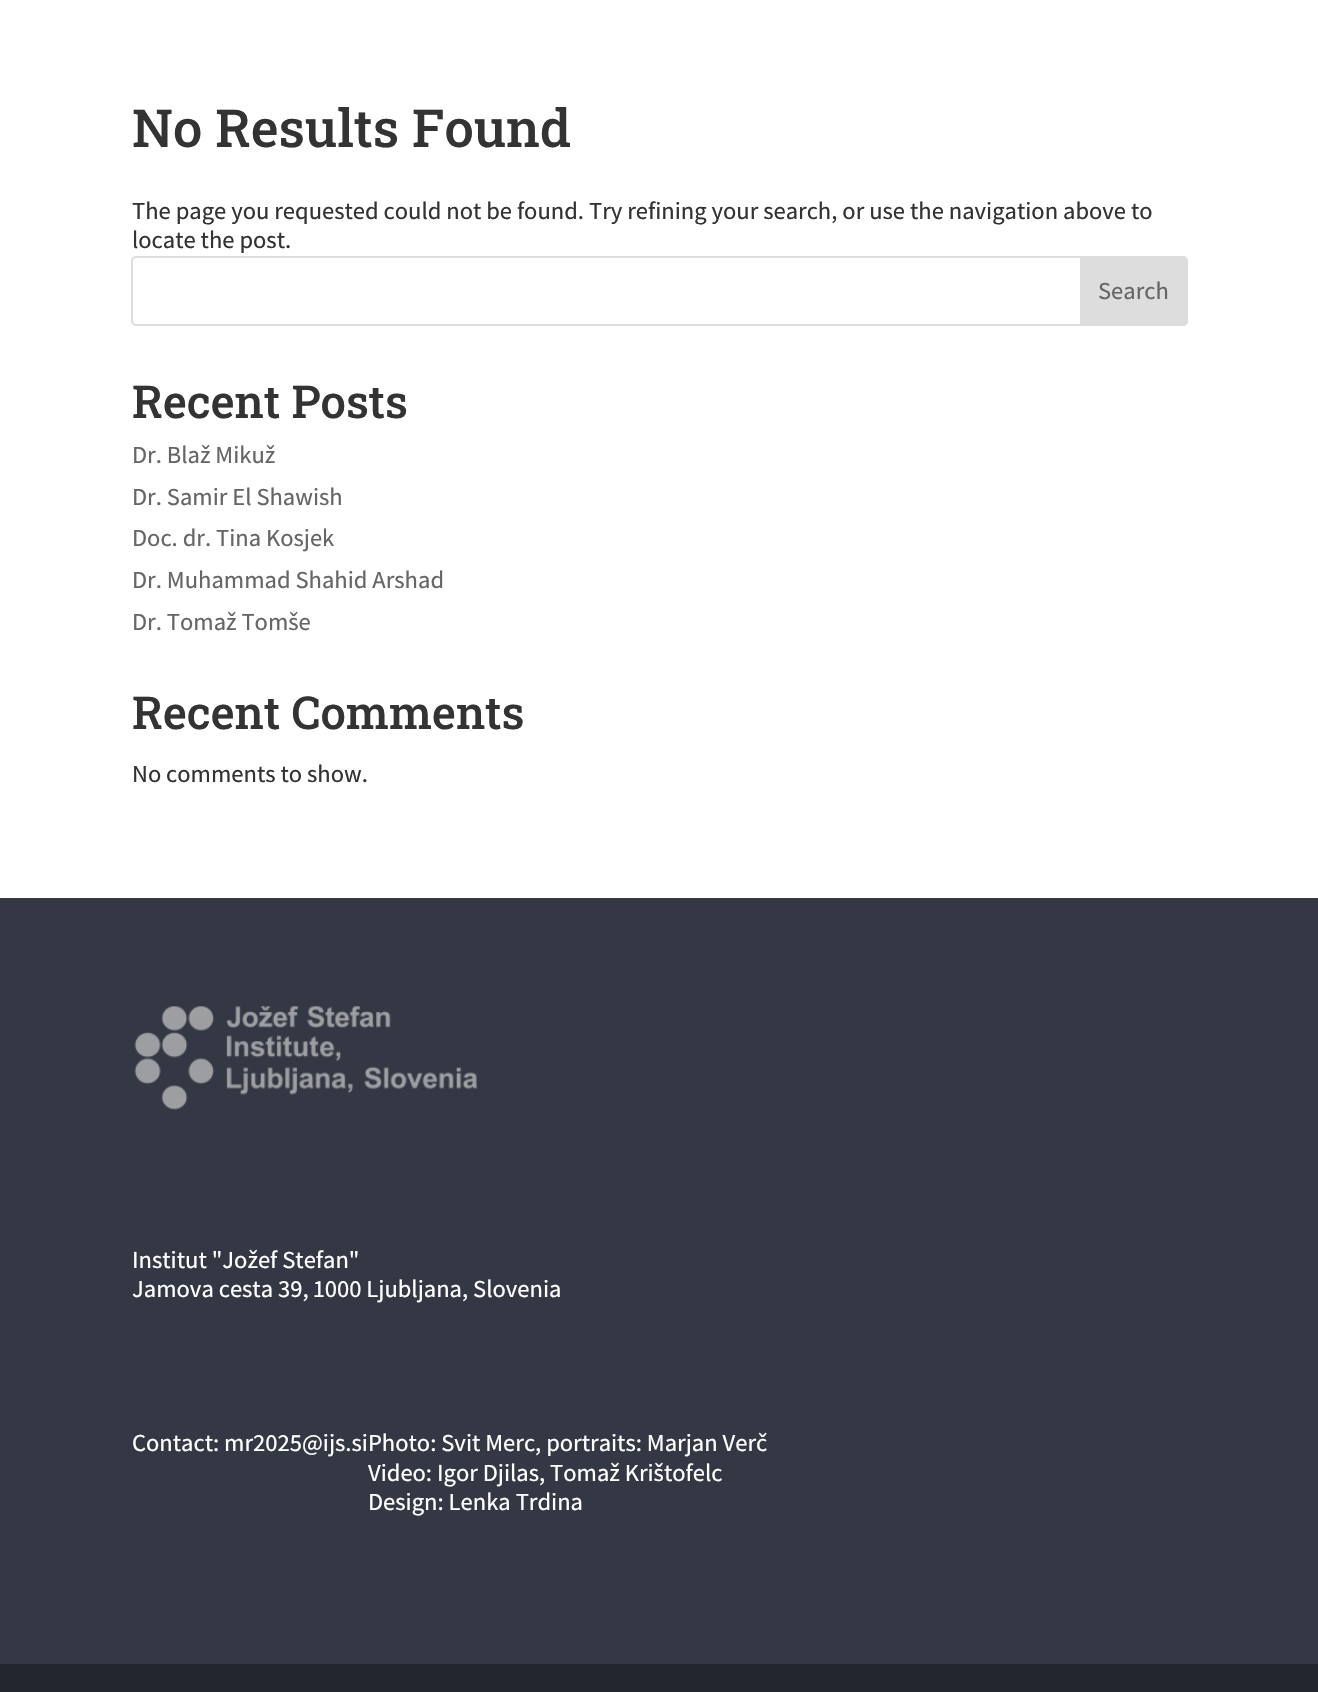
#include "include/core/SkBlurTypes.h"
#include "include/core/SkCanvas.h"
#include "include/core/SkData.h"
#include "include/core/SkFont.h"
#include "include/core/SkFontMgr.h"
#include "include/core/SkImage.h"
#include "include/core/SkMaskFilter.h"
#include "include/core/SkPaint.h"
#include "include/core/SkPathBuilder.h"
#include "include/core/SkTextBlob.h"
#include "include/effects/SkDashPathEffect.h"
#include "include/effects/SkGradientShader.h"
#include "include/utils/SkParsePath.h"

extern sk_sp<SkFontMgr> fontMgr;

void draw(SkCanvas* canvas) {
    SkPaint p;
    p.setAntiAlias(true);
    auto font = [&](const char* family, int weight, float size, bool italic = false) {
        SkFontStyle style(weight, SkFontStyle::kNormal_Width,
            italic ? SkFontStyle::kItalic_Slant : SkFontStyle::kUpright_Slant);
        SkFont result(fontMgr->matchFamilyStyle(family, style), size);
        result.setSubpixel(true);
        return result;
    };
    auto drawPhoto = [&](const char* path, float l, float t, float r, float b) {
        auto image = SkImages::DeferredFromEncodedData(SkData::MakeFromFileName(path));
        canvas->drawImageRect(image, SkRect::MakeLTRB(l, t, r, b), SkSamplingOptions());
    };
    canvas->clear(0xFFFFFFFF);
    auto font1 = font("Roboto Slab", 500, 52.5f);
    p.setColor(0xFF333333);
    canvas->drawString("No Results Found", 132, 147, font1, p);
    auto font2 = font("Assistant", 500, 24.5f);
    canvas->drawString("The page you requested could not be found. Try refining your search, or use the navigation above to", 132, 219, font2, p);
    canvas->drawString("locate the post.", 132, 248, font2, p);
    p.setStyle(SkPaint::kStroke_Style);
    p.setStrokeWidth(2);
    p.setColor(0xFFDDDDDD);
    canvas->drawRoundRect(SkRect::MakeLTRB(132, 257, 1187, 325), 4, 4, p);
    p.setStyle(SkPaint::kFill_Style);
    canvas->drawPath(SkPathBuilder().moveTo(1081, 257).lineTo(1183, 257).cubicTo(1185, 257, 1187, 259, 1187, 261).lineTo(1187, 321).cubicTo(1187, 323, 1185, 325, 1183, 325).lineTo(1081, 325).close().detach(), p);
    p.setStyle(SkPaint::kStroke_Style);
    canvas->drawPath(SkPathBuilder().moveTo(1081, 257).lineTo(1183, 257).cubicTo(1185, 257, 1187, 259, 1187, 261).lineTo(1187, 321).cubicTo(1187, 323, 1185, 325, 1183, 325).lineTo(1081, 325).close().detach(), p);
    p.setStyle(SkPaint::kFill_Style);
    p.setColor(0xFF666666);
    canvas->drawString("Search", 1098, 299, font2, p);
    auto font3 = font("Roboto Slab", 500, 45.5f);
    p.setColor(0xFF333333);
    canvas->drawString("Recent Posts", 132, 418, font3, p);
    p.setColor(0xFF666666);
    {
        const struct { const char* s; float x, y; } items[] = {
            {"Dr. Blaž Mikuž", 132, 463},
            {"Dr. Samir El Shawish", 132, 505},
            {"Doc. dr. Tina Kosjek", 132, 546},
            {"Dr. Muhammad Shahid Arshad", 132, 588},
            {"Dr. Tomaž Tomše", 132, 630},
        };
        for (auto [s, x, y] : items) {
            canvas->drawString(s, x, y, font2, p);
        }
    }
    p.setColor(0xFF333333);
    canvas->drawString("Recent Comments", 132, 729, font3, p);
    canvas->drawString("No comments to show.", 132, 782, font2, p);
    p.setColor(0xFF343844);
    canvas->drawRect(SkRect::MakeLTRB(0, 898, 1318, 1664), p);
    drawPhoto("media/1.png", 134, 1006, 478, 1110);
    p.setColor(0xFFFFFFFF);
    {
        const struct { const char* s; float x, y; } items[] = {
            {"Institut \"Jožef Stefan\"", 132, 1268},
            {"Jamova cesta 39, 1000 Ljubljana, Slovenia", 132, 1297},
            {"Contact: mr2025@ijs.siPhoto: Svit Merc, portraits: Marjan Verč", 132, 1451},
            {"Video: Igor Djilas, Tomaž Krištofelc", 368, 1481},
            {"Design: Lenka Trdina", 368, 1510},
        };
        for (auto [s, x, y] : items) {
            canvas->drawString(s, x, y, font2, p);
        }
    }
    p.setColor(0xFF23262E);
    canvas->drawRect(SkRect::MakeLTRB(0, 1664, 1318, 1692), p);
}
